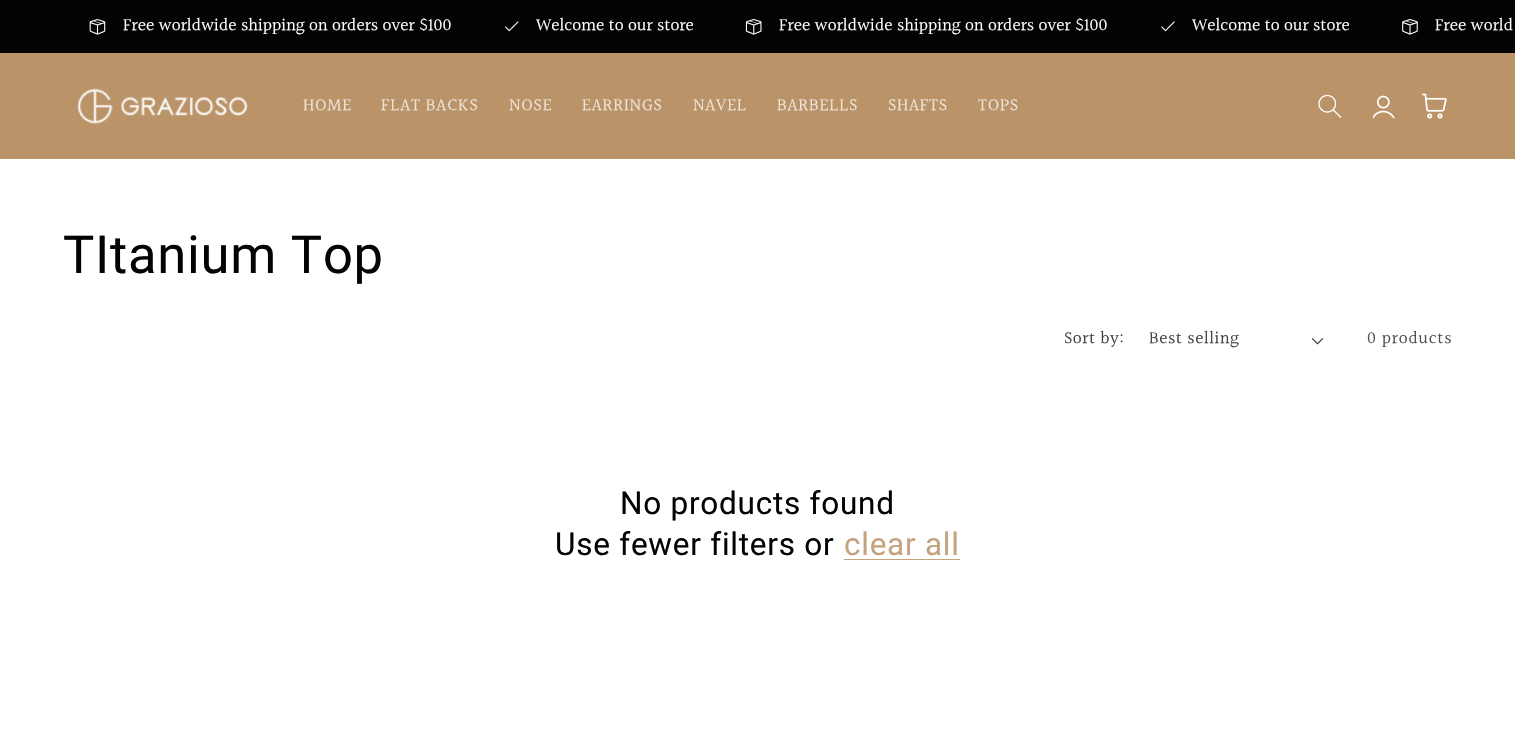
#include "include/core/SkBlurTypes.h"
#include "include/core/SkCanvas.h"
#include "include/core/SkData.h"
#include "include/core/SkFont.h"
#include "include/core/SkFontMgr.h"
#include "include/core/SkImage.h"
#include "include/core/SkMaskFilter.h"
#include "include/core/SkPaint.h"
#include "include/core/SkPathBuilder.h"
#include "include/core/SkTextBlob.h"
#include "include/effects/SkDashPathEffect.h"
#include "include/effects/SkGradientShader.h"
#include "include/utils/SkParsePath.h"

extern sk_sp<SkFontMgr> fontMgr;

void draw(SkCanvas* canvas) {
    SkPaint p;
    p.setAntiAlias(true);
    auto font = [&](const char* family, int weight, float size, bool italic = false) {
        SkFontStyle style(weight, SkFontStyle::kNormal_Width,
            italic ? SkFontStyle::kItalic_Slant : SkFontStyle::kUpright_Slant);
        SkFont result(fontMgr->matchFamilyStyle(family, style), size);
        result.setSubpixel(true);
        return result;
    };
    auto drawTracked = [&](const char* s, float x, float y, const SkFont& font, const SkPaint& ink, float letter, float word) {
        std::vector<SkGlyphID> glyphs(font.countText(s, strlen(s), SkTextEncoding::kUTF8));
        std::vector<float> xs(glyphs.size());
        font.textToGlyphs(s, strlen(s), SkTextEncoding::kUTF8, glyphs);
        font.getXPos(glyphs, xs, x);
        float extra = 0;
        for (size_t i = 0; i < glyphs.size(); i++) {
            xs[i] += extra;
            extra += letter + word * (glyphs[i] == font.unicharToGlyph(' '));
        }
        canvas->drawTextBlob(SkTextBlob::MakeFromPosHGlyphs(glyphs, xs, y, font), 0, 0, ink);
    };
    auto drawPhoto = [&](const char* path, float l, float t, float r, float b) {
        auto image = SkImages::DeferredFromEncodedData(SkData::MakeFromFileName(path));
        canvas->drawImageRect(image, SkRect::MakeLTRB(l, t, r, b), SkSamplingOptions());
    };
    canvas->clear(0xFFFFFFFF);
    p.setColor(0xFF030303);
    canvas->drawRect(SkRect::MakeLTRB(0, 0, 1515, 53), p);
    drawPhoto("media/1.png", 89, 19, 106, 35);
    auto font1 = font("Halant", 400, 17.5f);
    p.setColor(0xFFFFFFFF);
    canvas->drawString("Free worldwide shipping on orders over $100", 123, 31, font1, p);
    drawPhoto("media/2.png", 505, 21, 519, 32);
    canvas->drawString("Welcome to our store", 536, 31, font1, p);
    drawPhoto("media/3.png", 745, 19, 762, 35);
    canvas->drawString("Free worldwide shipping on orders over $100", 779, 31, font1, p);
    drawPhoto("media/4.png", 1161, 21, 1175, 32);
    canvas->drawString("Welcome to our store", 1192, 31, font1, p);
    drawPhoto("media/5.png", 1402, 19, 1418, 35);
    canvas->drawString("Free world", 1435, 31, font1, p);
    p.setColor(0xFFBA9468);
    canvas->drawRect(SkRect::MakeLTRB(0, 53, 1515, 159), p);
    drawPhoto("media/6.png", 77, 88, 248, 124);
    p.setColor(0xFFEEE4D9);
    {
        const struct { const char* s; float x, y; } items[] = {
            {"HOME", 303, 111},
            {"FLAT BACKS", 381, 111},
            {"NOSE", 509, 111},
            {"EARRINGS", 582, 111},
            {"NAVEL", 693, 111},
            {"BARBELLS", 777, 111},
            {"SHAFTS", 888, 111},
            {"TOPS", 978, 111},
        };
        for (auto [s, x, y] : items) {
            drawTracked(s, x, y, font1, p, 0.75f, 0);
        }
    }
    drawPhoto("media/7.png", 1318, 94, 1342, 118);
    drawPhoto("media/8.png", 1373, 95, 1395, 119);
    drawPhoto("media/9.png", 1422, 93, 1447, 119);
    auto font2 = font("Roboto", 400, 52.5f);
    p.setColor(0xFF030303);
    drawTracked("TItanium Top", 63, 273, font2, p, 0.75f, 0);
    p.setColor(0xFF424242);
    drawTracked("Sort by:", 1064, 344, font1, p, 0.5f, 0);
    drawTracked("Best selling", 1149, 344, font1, p, 0.5f, 0);
    drawPhoto("media/10.png", 1311, 338, 1324, 345);
    p.setColor(0xFF4F4F4F);
    drawTracked("0 products", 1367, 344, font1, p, 0.75f, 0);
    auto font3 = font("Roboto", 400, 31.5f);
    p.setColor(0xFF030303);
    drawTracked("No products found", 620, 514, font3, p, 0.75f, 0);
    drawTracked("Use fewer filters or", 555, 555, font3, p, 0.75f, 0);
    p.setColor(0xFFC4A47F);
    drawTracked("clear all", 844, 555, font3, p, 0.75f, 0);
    canvas->drawRect(SkRect::MakeLTRB(844, 559, 960, 560), p);
}
